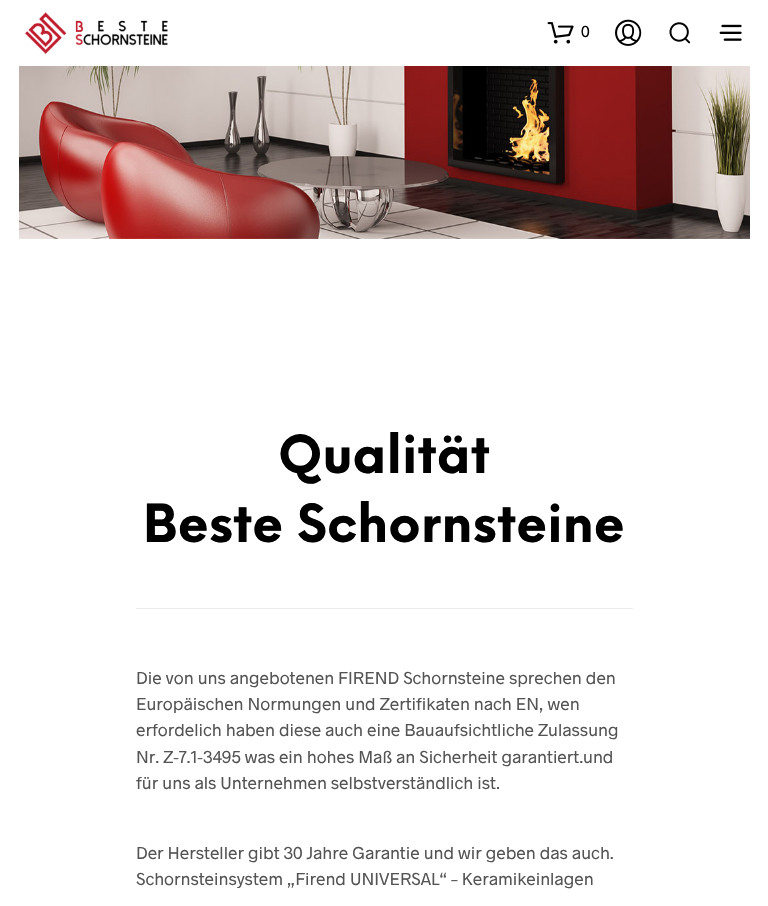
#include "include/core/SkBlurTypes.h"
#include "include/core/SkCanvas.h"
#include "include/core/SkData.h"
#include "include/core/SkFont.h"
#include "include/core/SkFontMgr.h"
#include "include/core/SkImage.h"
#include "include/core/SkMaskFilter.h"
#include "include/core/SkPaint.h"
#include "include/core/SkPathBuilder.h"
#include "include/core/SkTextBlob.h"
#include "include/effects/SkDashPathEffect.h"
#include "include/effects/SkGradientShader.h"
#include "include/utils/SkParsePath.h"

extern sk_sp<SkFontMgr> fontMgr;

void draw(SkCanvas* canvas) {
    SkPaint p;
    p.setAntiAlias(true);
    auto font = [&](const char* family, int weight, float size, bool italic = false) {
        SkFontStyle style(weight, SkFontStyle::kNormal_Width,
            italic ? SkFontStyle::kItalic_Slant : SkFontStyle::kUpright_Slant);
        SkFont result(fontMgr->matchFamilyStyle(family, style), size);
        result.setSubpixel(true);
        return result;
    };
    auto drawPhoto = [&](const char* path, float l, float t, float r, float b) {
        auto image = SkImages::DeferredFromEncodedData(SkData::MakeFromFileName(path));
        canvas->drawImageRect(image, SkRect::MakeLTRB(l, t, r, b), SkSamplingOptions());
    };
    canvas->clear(0xFFFFFFFF);
    drawPhoto("media/1.png", 25, 12, 168, 54);
    drawPhoto("media/2.png", 547, 22, 574, 44);
    auto font1 = font("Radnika", 400, 16);
    p.setColor(0xFF000000);
    canvas->drawString("0", 581, 37, font1, p);
    drawPhoto("media/3.png", 615, 19, 642, 46);
    drawPhoto("media/4.png", 669, 22, 691, 44);
    drawPhoto("media/5.png", 719, 24, 742, 41);
    drawPhoto("media/6.png", 19, 66, 750, 239);
    auto font2 = font("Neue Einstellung", 700, 51.25f);
    canvas->drawString("Qualität", 278, 473, font2, p);
    canvas->drawString("Beste Schornsteine", 143, 542, font2, p);
    p.setColor(0xFFEBEBEB);
    canvas->drawRect(SkRect::MakeLTRB(136, 608, 633, 609), p);
    auto font3 = font("Radnika", 400, 17.5f);
    p.setColor(0xFF545454);
    {
        const struct { const char* s; float x, y; } items[] = {
            {"Die von uns angebotenen FIREND Schornsteine sprechen den", 136, 684},
            {"Europäischen Normungen und Zertifikaten nach EN, wen", 136, 710},
            {"erfordelich haben diese auch eine Bauaufsichtliche Zulassung", 136, 736},
            {"Nr. Z-7.1-3495 was ein hohes Maß an Sicherheit garantiert.und", 136, 763},
            {"für uns als Unternehmen selbstverständlich ist.", 136, 789},
            {"Der Hersteller gibt 30 Jahre Garantie und wir geben das auch.", 136, 859},
            {"Schornsteinsystem „Firend UNIVERSAL“ – Keramikeinlagen", 136, 885},
        };
        for (auto [s, x, y] : items) {
            canvas->drawString(s, x, y, font3, p);
        }
    }
}
